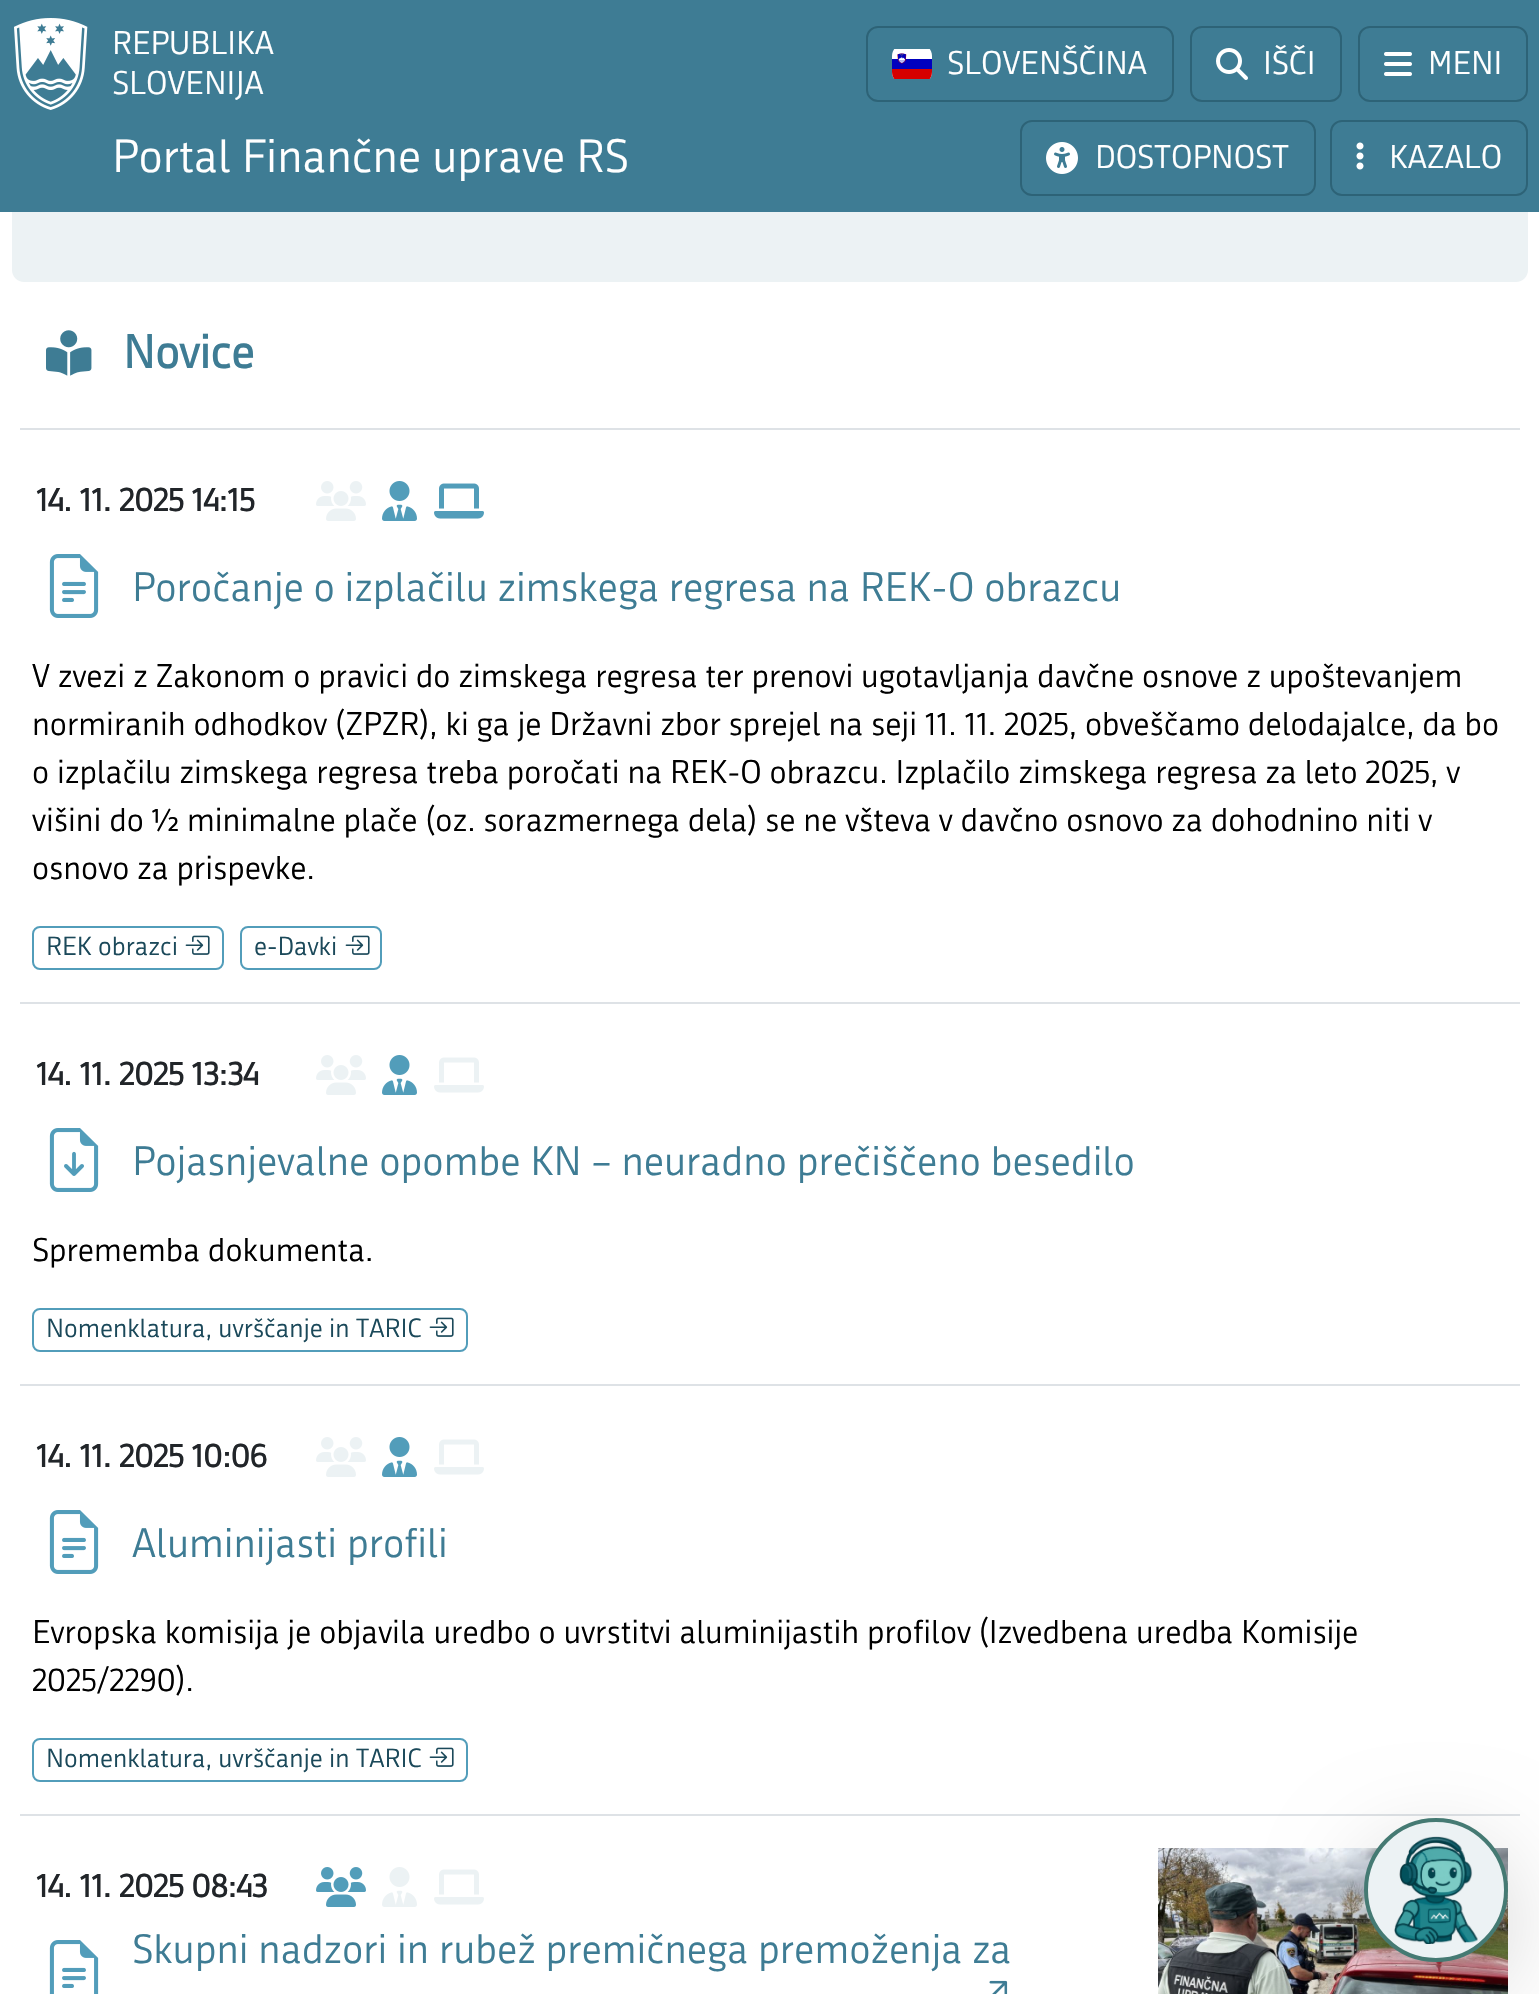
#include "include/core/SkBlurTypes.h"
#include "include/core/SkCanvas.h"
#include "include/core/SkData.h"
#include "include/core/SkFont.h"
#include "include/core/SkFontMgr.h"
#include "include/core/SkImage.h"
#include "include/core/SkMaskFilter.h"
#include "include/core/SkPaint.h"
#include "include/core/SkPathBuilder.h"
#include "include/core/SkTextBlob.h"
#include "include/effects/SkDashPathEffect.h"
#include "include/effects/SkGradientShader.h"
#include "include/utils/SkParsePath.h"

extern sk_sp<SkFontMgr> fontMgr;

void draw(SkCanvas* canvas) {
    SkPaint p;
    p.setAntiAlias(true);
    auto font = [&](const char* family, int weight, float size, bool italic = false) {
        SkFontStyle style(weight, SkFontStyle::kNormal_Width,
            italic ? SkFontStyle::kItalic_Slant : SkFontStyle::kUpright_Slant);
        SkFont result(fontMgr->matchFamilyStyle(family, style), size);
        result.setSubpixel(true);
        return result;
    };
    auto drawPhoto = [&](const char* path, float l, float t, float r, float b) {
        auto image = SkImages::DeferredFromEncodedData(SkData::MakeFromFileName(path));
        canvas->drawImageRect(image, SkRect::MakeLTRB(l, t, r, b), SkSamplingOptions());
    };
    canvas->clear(0xFFFFFFFF);
    p.setColor(0xFF3E7C94);
    canvas->drawRect(SkRect::MakeLTRB(0, 0, 1539, 212), p);
    drawPhoto("media/1.png", 14, 18, 88, 110);
    auto font1 = font("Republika", 400, 32);
    p.setColor(0xFFFFFFFF);
    canvas->drawString("REPUBLIKA", 112, 54, font1, p);
    canvas->drawString("SLOVENIJA", 112, 94, font1, p);
    p.setStyle(SkPaint::kStroke_Style);
    p.setStrokeWidth(2);
    p.setColor(0xFF2D6377);
    canvas->drawRoundRect(SkRect::MakeLTRB(867, 27, 1173, 101), 11, 11, p);
    drawPhoto("media/2.png", 892, 49, 932, 79);
    p.setStyle(SkPaint::kFill_Style);
    p.setColor(0xFFFFFFFF);
    canvas->drawString("SLOVENŠČINA", 947, 74, font1, p);
    p.setStyle(SkPaint::kStroke_Style);
    p.setColor(0xFF2D6377);
    canvas->drawRoundRect(SkRect::MakeLTRB(1191, 27, 1341, 101), 11, 11, p);
    drawPhoto("media/3.png", 1216, 48, 1248, 80);
    p.setStyle(SkPaint::kFill_Style);
    p.setColor(0xFFFFFFFF);
    canvas->drawString("IŠČI", 1263, 74, font1, p);
    p.setStyle(SkPaint::kStroke_Style);
    p.setColor(0xFF2D6377);
    canvas->drawRoundRect(SkRect::MakeLTRB(1359, 27, 1527, 101), 11, 11, p);
    drawPhoto("media/4.png", 1384, 52, 1412, 76);
    p.setStyle(SkPaint::kFill_Style);
    p.setColor(0xFFFFFFFF);
    canvas->drawString("MENI", 1428, 74, font1, p);
    auto font2 = font("Republika", 400, 45.5f);
    canvas->drawString("Portal Finančne uprave RS", 112, 172, font2, p);
    p.setStyle(SkPaint::kStroke_Style);
    p.setColor(0xFF2D6377);
    canvas->drawRoundRect(SkRect::MakeLTRB(1021, 121, 1315, 195), 11, 11, p);
    drawPhoto("media/5.png", 1046, 142, 1078, 174);
    p.setStyle(SkPaint::kFill_Style);
    p.setColor(0xFFFFFFFF);
    canvas->drawString("DOSTOPNOST", 1095, 168, font1, p);
    p.setStyle(SkPaint::kStroke_Style);
    p.setColor(0xFF2D6377);
    canvas->drawRoundRect(SkRect::MakeLTRB(1331, 121, 1527, 195), 11, 11, p);
    drawPhoto("media/6.png", 1356, 142, 1364, 170);
    p.setStyle(SkPaint::kFill_Style);
    p.setColor(0xFFFFFFFF);
    canvas->drawString("KAZALO", 1389, 168, font1, p);
    p.setColor(0xFFECF2F4);
    canvas->drawPath(SkPathBuilder().moveTo(12, 212).lineTo(1528, 212).lineTo(1528, 270).cubicTo(1528, 276.5f, 1522.5f, 282, 1516, 282).lineTo(24, 282).cubicTo(17.5f, 282, 12, 276.5f, 12, 270).close().detach(), p);
    drawPhoto("media/7.png", 46, 330, 92, 376);
    auto font3 = font("Republika", 700, 45.5f);
    p.setColor(0xFF3E7C94);
    canvas->drawString("Novice", 123, 368, font3, p);
    p.setColor(0xFFDEE2E6);
    canvas->drawRect(SkRect::MakeLTRB(20, 428, 1520, 430), p);
    canvas->drawRect(SkRect::MakeLTRB(20, 1002, 1520, 1004), p);
    auto font4 = font("Republika", 700, 32);
    p.setColor(0xFF212529);
    canvas->drawString("14. 11. 2025 14:15", 36, 511, font4, p);
    drawPhoto("media/8.png", 316, 481, 366, 521);
    drawPhoto("media/9.png", 382, 481, 417, 521);
    drawPhoto("media/10.png", 434, 483, 484, 519);
    drawPhoto("media/11.png", 49, 554, 99, 618);
    auto font5 = font("Republika", 400, 40);
    p.setColor(0xFF3E7C94);
    canvas->drawString("Poročanje o izplačilu zimskega regresa na REK-O obrazcu", 132, 601, font5, p);
    p.setColor(0xFF000000);
    {
        const struct { const char* s; float x, y; } items[] = {
            {"V zvezi z Zakonom o pravici do zimskega regresa ter prenovi ugotavljanja davčne osnove z upoštevanjem", 32, 687},
            {"normiranih odhodkov (ZPZR), ki ga je Državni zbor sprejel na seji 11. 11. 2025, obveščamo delodajalce, da bo", 32, 735},
            {"o izplačilu zimskega regresa treba poročati na REK-O obrazcu. Izplačilo zimskega regresa za leto 2025, v", 32, 783},
            {"višini do ½ minimalne plače (oz. sorazmernega dela) se ne všteva v davčno osnovo za dohodnino niti v", 32, 831},
            {"osnovo za prispevke.", 32, 879},
        };
        for (auto [s, x, y] : items) {
            canvas->drawString(s, x, y, font1, p);
        }
    }
    p.setStyle(SkPaint::kStroke_Style);
    p.setColor(0xFF529DBA);
    canvas->drawRoundRect(SkRect::MakeLTRB(33, 927, 223, 969), 7, 7, p);
    auto font6 = font("Republika", 400, 25.6f);
    p.setStyle(SkPaint::kFill_Style);
    p.setColor(0xFF1B495A);
    canvas->drawString("REK obrazci", 46, 955, font6, p);
    drawPhoto("media/12.png", 185, 935, 210, 955);
    p.setStyle(SkPaint::kStroke_Style);
    p.setColor(0xFF529DBA);
    canvas->drawRoundRect(SkRect::MakeLTRB(241, 927, 381, 969), 7, 7, p);
    p.setStyle(SkPaint::kFill_Style);
    p.setColor(0xFF1B495A);
    canvas->drawString("e-Davki", 254, 955, font6, p);
    drawPhoto("media/12.png", 345, 935, 370, 955);
    p.setColor(0xFFDEE2E6);
    canvas->drawRect(SkRect::MakeLTRB(20, 1384, 1520, 1386), p);
    p.setColor(0xFF212529);
    canvas->drawString("14. 11. 2025 13:34", 36, 1085, font4, p);
    drawPhoto("media/8.png", 316, 1055, 366, 1095);
    drawPhoto("media/9.png", 382, 1055, 417, 1095);
    drawPhoto("media/13.png", 434, 1057, 484, 1093);
    drawPhoto("media/14.png", 49, 1128, 99, 1192);
    p.setColor(0xFF3E7C94);
    canvas->drawString("Pojasnjevalne opombe KN – neuradno prečiščeno besedilo", 132, 1175, font5, p);
    p.setColor(0xFF000000);
    canvas->drawString("Sprememba dokumenta.", 32, 1261, font1, p);
    p.setStyle(SkPaint::kStroke_Style);
    p.setColor(0xFF529DBA);
    canvas->drawRoundRect(SkRect::MakeLTRB(33, 1309, 467, 1351), 7, 7, p);
    p.setStyle(SkPaint::kFill_Style);
    p.setColor(0xFF1B495A);
    canvas->drawString("Nomenklatura, uvrščanje in TARIC", 46, 1337, font6, p);
    drawPhoto("media/12.png", 429, 1317, 454, 1337);
    p.setColor(0xFFDEE2E6);
    canvas->drawRect(SkRect::MakeLTRB(20, 1814, 1520, 1816), p);
    p.setColor(0xFF212529);
    canvas->drawString("14. 11. 2025 10:06", 36, 1467, font4, p);
    drawPhoto("media/8.png", 316, 1437, 366, 1477);
    drawPhoto("media/9.png", 382, 1437, 417, 1477);
    drawPhoto("media/13.png", 434, 1439, 484, 1475);
    drawPhoto("media/11.png", 49, 1510, 99, 1574);
    p.setColor(0xFF3E7C94);
    canvas->drawString("Aluminijasti profili", 132, 1557, font5, p);
    p.setColor(0xFF000000);
    canvas->drawString("Evropska komisija je objavila uredbo o uvrstitvi aluminijastih profilov (Izvedbena uredba Komisije", 32, 1643, font1, p);
    canvas->drawString("2025/2290).", 32, 1691, font1, p);
    p.setStyle(SkPaint::kStroke_Style);
    p.setColor(0xFF529DBA);
    canvas->drawRoundRect(SkRect::MakeLTRB(33, 1739, 467, 1781), 7, 7, p);
    p.setStyle(SkPaint::kFill_Style);
    p.setColor(0xFF1B495A);
    canvas->drawString("Nomenklatura, uvrščanje in TARIC", 46, 1767, font6, p);
    drawPhoto("media/12.png", 429, 1747, 454, 1767);
    p.setColor(0xFF212529);
    canvas->drawString("14. 11. 2025 08:43", 36, 1897, font4, p);
    drawPhoto("media/15.png", 316, 1867, 366, 1907);
    drawPhoto("media/16.png", 382, 1867, 417, 1907);
    drawPhoto("media/13.png", 434, 1869, 484, 1905);
    drawPhoto("media/17.png", 49, 1940, 99, 1994);
    p.setColor(0xFF3E7C94);
    canvas->drawString("Skupni nadzori in rubež premičnega premoženja za", 132, 1963, font5, p);
    drawPhoto("media/18.png", 989, 1980, 1008, 1994);
    drawPhoto("media/19.png", 1158, 1848, 1508, 1994);
    p.setColor(0x2E000000);
    p.setMaskFilter(SkMaskFilter::MakeBlur(kNormal_SkBlurStyle, 48));
    canvas->drawRoundRect(SkRect::MakeLTRB(1364, 1850, 1508, 1994), 72, 72, p);
    p.setMaskFilter(nullptr);
    p.setColor(0xFFECF2F4);
    canvas->drawCircle(1436, 1890, 70, p);
    p.setStyle(SkPaint::kStroke_Style);
    p.setStrokeWidth(4);
    p.setColor(0xFF457A73);
    canvas->drawCircle(1436, 1890, 70, p);
    drawPhoto("media/20.png", 1394, 1836, 1478, 1944);
}
